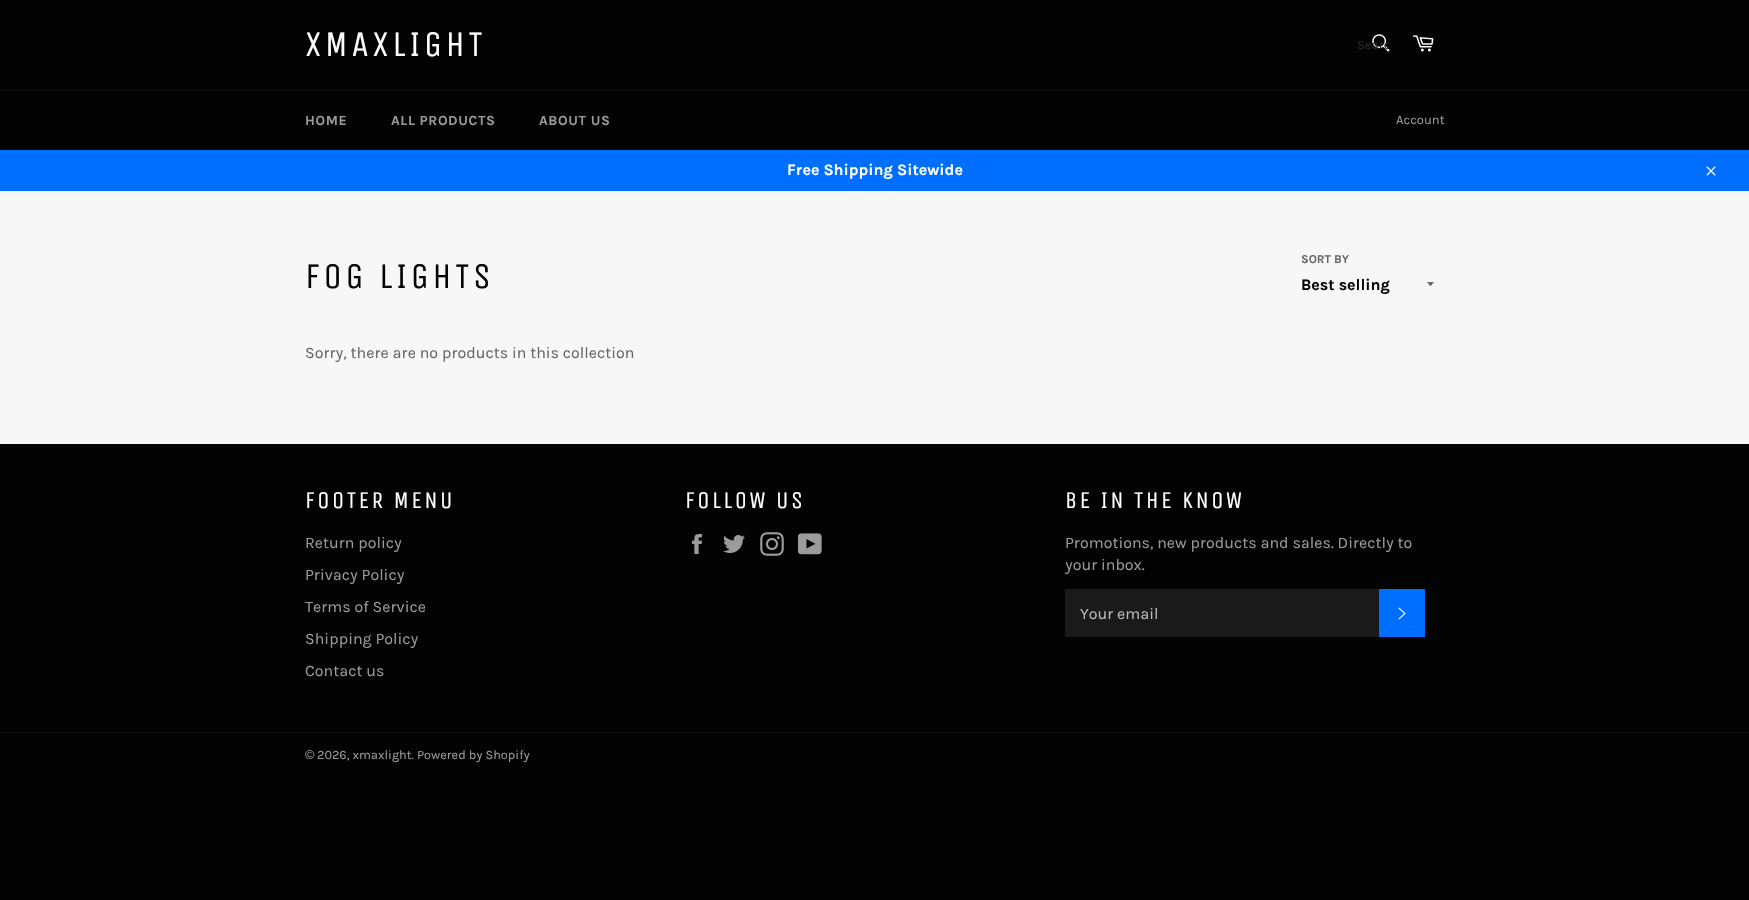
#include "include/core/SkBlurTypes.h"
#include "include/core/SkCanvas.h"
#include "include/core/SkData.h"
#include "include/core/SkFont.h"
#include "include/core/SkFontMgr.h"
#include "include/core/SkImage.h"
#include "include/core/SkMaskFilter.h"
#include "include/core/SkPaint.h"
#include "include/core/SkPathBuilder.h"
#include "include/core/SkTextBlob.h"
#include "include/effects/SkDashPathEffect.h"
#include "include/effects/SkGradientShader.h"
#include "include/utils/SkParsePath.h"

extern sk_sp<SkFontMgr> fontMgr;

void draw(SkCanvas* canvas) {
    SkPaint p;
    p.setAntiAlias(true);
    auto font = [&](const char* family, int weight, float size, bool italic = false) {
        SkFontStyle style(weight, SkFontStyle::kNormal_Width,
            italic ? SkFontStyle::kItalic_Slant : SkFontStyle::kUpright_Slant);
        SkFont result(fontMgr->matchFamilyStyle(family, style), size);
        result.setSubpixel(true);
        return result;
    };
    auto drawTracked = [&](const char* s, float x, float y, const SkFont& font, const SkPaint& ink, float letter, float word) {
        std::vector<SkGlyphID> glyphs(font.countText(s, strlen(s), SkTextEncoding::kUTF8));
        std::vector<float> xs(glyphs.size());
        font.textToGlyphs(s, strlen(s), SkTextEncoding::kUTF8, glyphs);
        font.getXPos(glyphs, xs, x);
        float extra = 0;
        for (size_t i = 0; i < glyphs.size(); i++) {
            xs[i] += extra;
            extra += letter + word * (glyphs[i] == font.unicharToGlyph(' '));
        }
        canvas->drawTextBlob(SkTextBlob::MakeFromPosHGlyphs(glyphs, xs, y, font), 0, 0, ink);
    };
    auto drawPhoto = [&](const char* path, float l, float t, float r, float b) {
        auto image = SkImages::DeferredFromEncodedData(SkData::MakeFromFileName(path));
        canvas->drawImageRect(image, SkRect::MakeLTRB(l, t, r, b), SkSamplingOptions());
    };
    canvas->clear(0xFF030303);
    p.setColor(0xFFF7F7F7);
    canvas->drawRect(SkRect::MakeLTRB(0, 191, 1749, 444), p);
    auto font1 = font("Unica One", 400, 36);
    p.setColor(0xFFFFFFFF);
    drawTracked("XMAXLIGHT", 305, 56, font1, p, 3.6f, 0);
    drawPhoto("media/1.png", 1372, 34, 1390, 52);
    canvas->save();
    canvas->clipRect(SkRect::MakeLTRB(1357, 37, 1389, 52));
    auto font2 = font("Karla", 400, 13);
    p.setColor(0xFF292929);
    canvas->drawString("Searc", 1357, 49, font2, p);
    canvas->restore();
    drawPhoto("media/2.png", 1412, 35, 1434, 52);
    p.setColor(0xFF101010);
    canvas->drawRect(SkRect::MakeLTRB(0, 90, 1749, 91), p);
    auto font3 = font("Karla", 700, 14);
    p.setColor(0xFF9A9A9A);
    {
        const struct { const char* s; float x, y; } items[] = {
            {"HOME", 305, 125},
            {"ALL PRODUCTS", 391, 125},
            {"ABOUT US", 539, 125},
        };
        for (auto [s, x, y] : items) {
            drawTracked(s, x, y, font3, p, 0.6f, 0);
        }
    }
    canvas->drawString("Account", 1396, 124, font2, p);
    p.setColor(0xFF006EFF);
    canvas->drawRect(SkRect::MakeLTRB(0, 150, 1749, 191), p);
    auto font4 = font("Karla", 700, 16);
    p.setColor(0xFFFFFFFF);
    canvas->drawString("Free Shipping Sitewide", 787, 175, font4, p);
    drawPhoto("media/3.png", 1706, 166, 1716, 176);
    p.setColor(0xFF030303);
    drawTracked("FOG LIGHTS", 305, 288, font1, p, 3.6f, 0);
    auto font5 = font("Karla", 700, 12);
    p.setColor(0xFF666666);
    canvas->drawString("SORT BY", 1301, 263, font5, p);
    canvas->drawPath(SkPathBuilder().moveTo(1427, 282).cubicTo(1431.5f, 287.5f, 1429.5f, 287.5f, 1434, 282).close().detach(), p);
    p.setColor(0xFF030303);
    canvas->drawString("Best selling", 1301, 290, font4, p);
    auto font6 = font("Karla", 400, 16);
    p.setColor(0xFF666666);
    canvas->drawString("Sorry, there are no products in this collection", 305, 358, font6, p);
    auto font7 = font("Unica One", 400, 24);
    p.setColor(0xFFFFFFFF);
    drawTracked("FOOTER MENU", 305, 508, font7, p, 2.4f, 0);
    p.setColor(0xFF9A9A9A);
    {
        const struct { const char* s; float x, y; } items[] = {
            {"Return policy", 305, 548},
            {"Privacy Policy", 305, 580},
            {"Terms of Service", 305, 612},
            {"Shipping Policy", 305, 644},
            {"Contact us", 305, 676},
        };
        for (auto [s, x, y] : items) {
            canvas->drawString(s, x, y, font6, p);
        }
    }
    p.setColor(0xFFFFFFFF);
    drawTracked("FOLLOW US", 685, 508, font7, p, 2.4f, 0);
    drawPhoto("media/4.png", 692, 534, 702, 554);
    drawPhoto("media/5.png", 723, 535, 745, 553);
    drawPhoto("media/6.png", 760, 532, 784, 556);
    drawPhoto("media/7.png", 798, 533, 822, 555);
    drawTracked("BE IN THE KNOW", 1065, 508, font7, p, 2.4f, 0);
    p.setColor(0xFF9A9A9A);
    canvas->drawString("Promotions, new products and sales. Directly to", 1065, 548, font6, p);
    canvas->drawString("your inbox.", 1065, 570, font6, p);
    p.setColor(0xFF1A1A1A);
    canvas->drawRect(SkRect::MakeLTRB(1065, 589, 1379, 637), p);
    p.setColor(0xFFBABABA);
    canvas->drawString("Your email", 1080, 619, font6, p);
    p.setColor(0xFF006EFF);
    canvas->drawRect(SkRect::MakeLTRB(1379, 589, 1425, 637), p);
    drawPhoto("media/8.png", 1398, 607, 1406, 620);
    p.setColor(0xFF101010);
    canvas->drawRect(SkRect::MakeLTRB(0, 732, 1749, 733), p);
    auto font8 = font("Liberation Sans", 400, 12.75f);
    p.setColor(0xFF9A9A9A);
    canvas->drawString("©", 305, 759, font8, p);
    auto font9 = font("Karla", 400, 12.75f);
    canvas->drawString("2026, xmaxlight. Powered by Shopify", 317, 759, font9, p);
}
